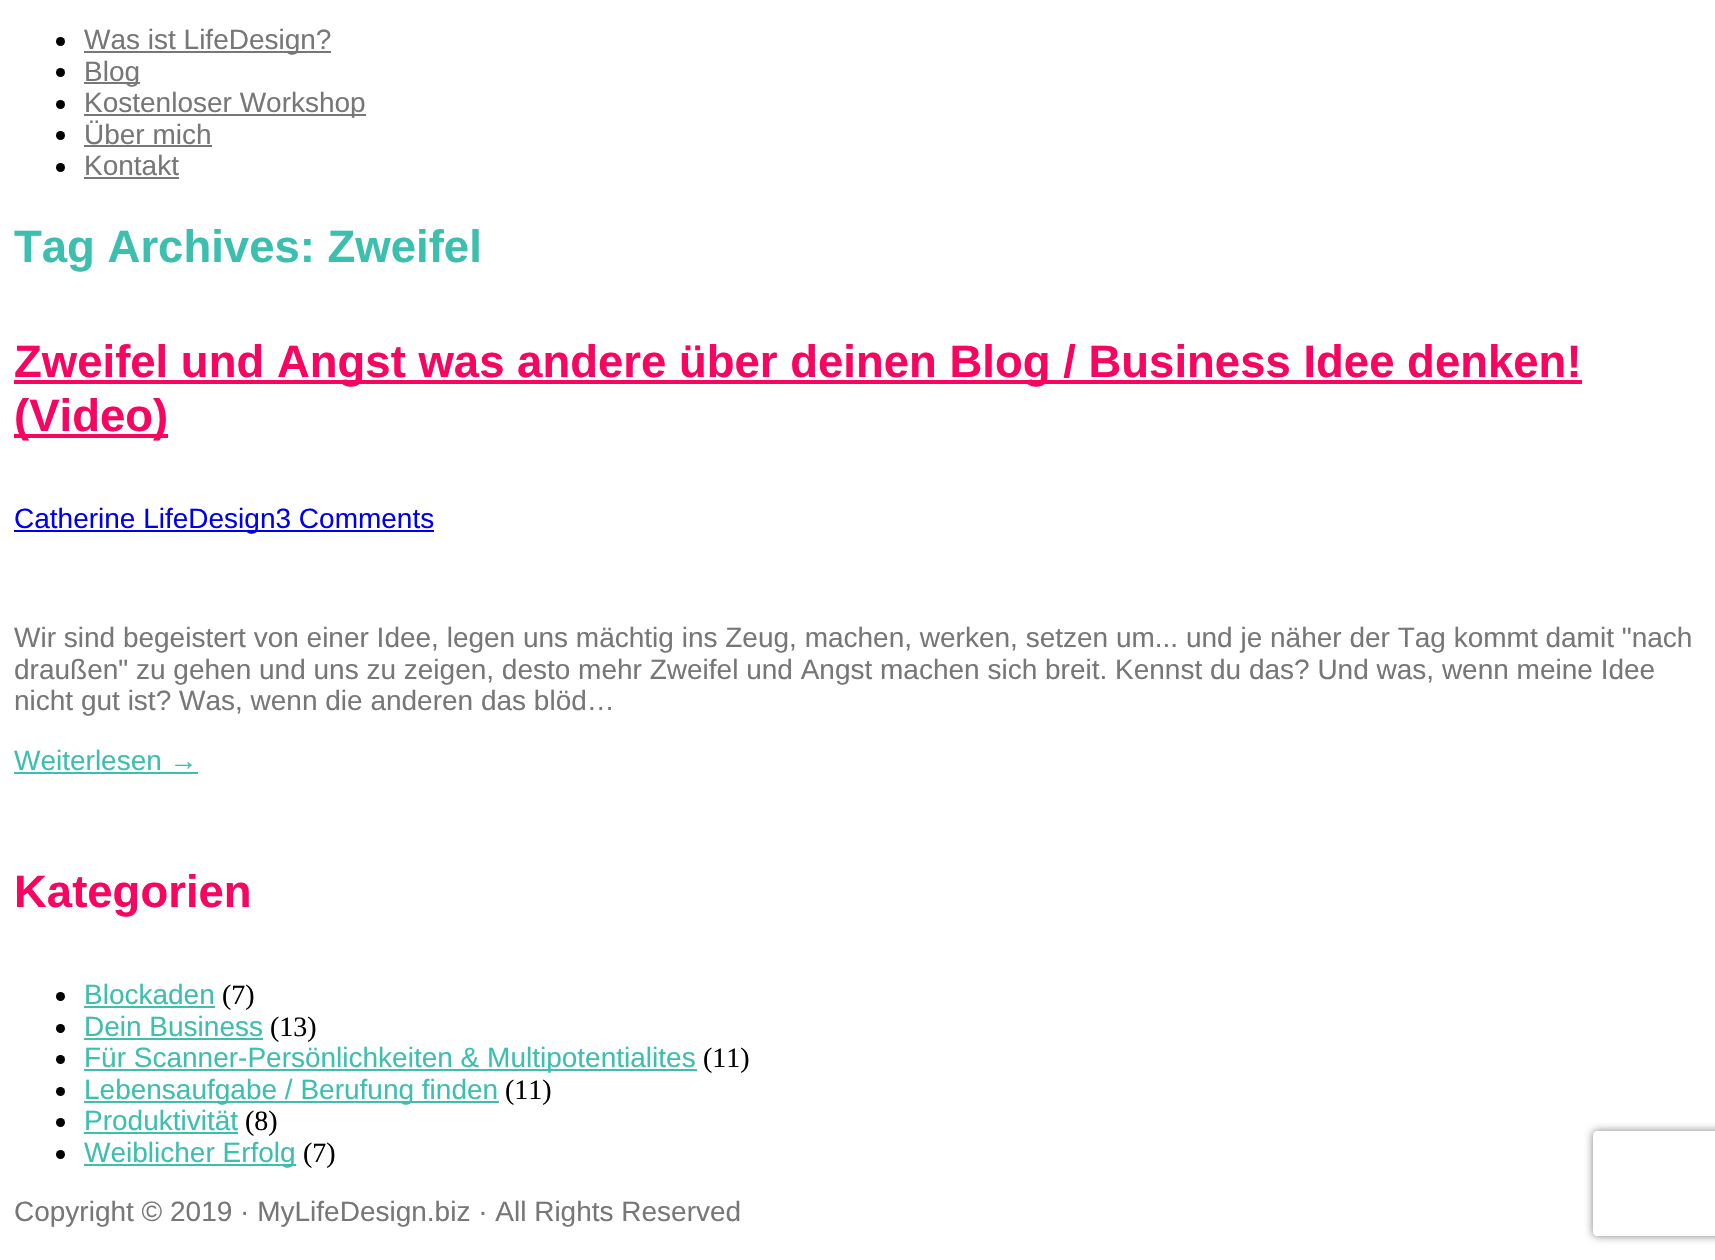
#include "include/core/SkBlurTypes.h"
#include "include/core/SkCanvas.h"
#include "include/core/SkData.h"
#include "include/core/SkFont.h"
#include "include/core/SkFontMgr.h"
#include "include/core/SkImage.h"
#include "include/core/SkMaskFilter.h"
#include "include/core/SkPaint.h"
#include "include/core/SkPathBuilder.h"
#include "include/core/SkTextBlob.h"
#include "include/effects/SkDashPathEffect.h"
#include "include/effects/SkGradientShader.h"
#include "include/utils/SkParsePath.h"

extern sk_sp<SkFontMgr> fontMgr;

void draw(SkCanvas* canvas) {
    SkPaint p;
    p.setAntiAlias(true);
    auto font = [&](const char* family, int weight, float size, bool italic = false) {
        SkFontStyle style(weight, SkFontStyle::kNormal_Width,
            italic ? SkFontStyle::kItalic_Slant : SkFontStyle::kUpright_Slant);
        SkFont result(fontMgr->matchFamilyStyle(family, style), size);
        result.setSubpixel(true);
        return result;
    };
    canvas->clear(0xFFFFFFFF);
    p.setColor(0xFF000000);
    canvas->drawCircle(60.5f, 41.5f, 4.5f, p);
    p.setColor(0xFF777777);
    canvas->drawRect(SkRect::MakeLTRB(84, 51, 331, 53), p);
    auto font1 = font("Liberation Sans", 400, 28);
    canvas->drawString("Was ist LifeDesign?", 84, 49, font1, p);
    p.setColor(0xFF000000);
    canvas->drawCircle(60.5f, 72.5f, 4.5f, p);
    p.setColor(0xFF777777);
    canvas->drawRect(SkRect::MakeLTRB(84, 82, 140, 84), p);
    canvas->drawString("Blog", 84, 81, font1, p);
    p.setColor(0xFF000000);
    canvas->drawCircle(60.5f, 104.5f, 4.5f, p);
    p.setColor(0xFF777777);
    canvas->drawRect(SkRect::MakeLTRB(84, 114, 366, 116), p);
    canvas->drawString("Kostenloser Workshop", 84, 112, font1, p);
    p.setColor(0xFF000000);
    canvas->drawCircle(60.5f, 135.5f, 4.5f, p);
    p.setColor(0xFF777777);
    canvas->drawString("Über mich", 84, 144, font1, p);
    canvas->drawRect(SkRect::MakeLTRB(84, 145, 212, 147), p);
    p.setColor(0xFF000000);
    canvas->drawCircle(60.5f, 167.5f, 4.5f, p);
    p.setColor(0xFF777777);
    canvas->drawString("Kontakt", 84, 175, font1, p);
    canvas->drawRect(SkRect::MakeLTRB(84, 177, 179, 179), p);
    auto font2 = font("Liberation Sans", 700, 45.5f);
    p.setColor(0xFF3CBFAE);
    canvas->drawString("Tag Archives: Zweifel", 14, 262, font2, p);
    p.setColor(0xFFF70560);
    canvas->drawRect(SkRect::MakeLTRB(14, 380, 1582, 384), p);
    canvas->drawString("Zweifel und Angst was andere über deinen Blog / Business Idee denken!", 14, 377, font2, p);
    canvas->drawRect(SkRect::MakeLTRB(14, 434, 168, 438), p);
    canvas->drawString("(Video)", 14, 431, font2, p);
    p.setColor(0xFF0000EE);
    canvas->drawRect(SkRect::MakeLTRB(14, 530, 434, 532), p);
    canvas->drawString("Catherine LifeDesign3 Comments", 14, 528, font1, p);
    p.setColor(0xFF777777);
    {
        const struct { const char* s; float x, y; } items[] = {
            {"Wir sind begeistert von einer Idee, legen uns mächtig ins Zeug, machen, werken, setzen um... und je näher der Tag kommt damit \"nach", 14, 647},
            {"draußen\" zu gehen und uns zu zeigen, desto mehr Zweifel und Angst machen sich breit. Kennst du das? Und was, wenn meine Idee", 14, 679},
            {"nicht gut ist? Was, wenn die anderen das blöd…", 14, 710},
        };
        for (auto [s, x, y] : items) {
            canvas->drawString(s, x, y, font1, p);
        }
    }
    p.setColor(0xFF3CBFAE);
    canvas->drawString("Weiterlesen →", 14, 770, font1, p);
    canvas->drawRect(SkRect::MakeLTRB(14, 772, 198, 774), p);
    p.setColor(0xFFF70560);
    canvas->drawString("Kategorien", 14, 907, font2, p);
    p.setColor(0xFF000000);
    canvas->drawCircle(60.5f, 996.5f, 4.5f, p);
    p.setColor(0xFF3CBFAE);
    canvas->drawString("Blockaden", 84, 1004, font1, p);
    canvas->drawRect(SkRect::MakeLTRB(84, 1006, 215, 1008), p);
    auto font3 = font("Liberation Serif", 400, 28);
    p.setColor(0xFF000000);
    canvas->drawString("(7)", 222, 1004, font3, p);
    canvas->drawCircle(60.5f, 1028.5f, 4.5f, p);
    p.setColor(0xFF3CBFAE);
    canvas->drawString("Dein Business", 84, 1036, font1, p);
    canvas->drawRect(SkRect::MakeLTRB(84, 1038, 263, 1040), p);
    p.setColor(0xFF000000);
    canvas->drawString("(13)", 270, 1036, font3, p);
    canvas->drawCircle(60.5f, 1059.5f, 4.5f, p);
    p.setColor(0xFF3CBFAE);
    canvas->drawRect(SkRect::MakeLTRB(84, 1069, 697, 1071), p);
    canvas->drawString("Für Scanner-Persönlichkeiten & Multipotentialites", 84, 1067, font1, p);
    p.setColor(0xFF000000);
    canvas->drawString("(11)", 703, 1067, font3, p);
    canvas->drawCircle(60.5f, 1091.5f, 4.5f, p);
    p.setColor(0xFF3CBFAE);
    canvas->drawRect(SkRect::MakeLTRB(84, 1101, 499, 1103), p);
    canvas->drawString("Lebensaufgabe / Berufung finden", 84, 1099, font1, p);
    p.setColor(0xFF000000);
    canvas->drawString("(11)", 505, 1099, font3, p);
    canvas->drawCircle(60.5f, 1122.5f, 4.5f, p);
    p.setColor(0xFF3CBFAE);
    canvas->drawString("Produktivität", 84, 1130, font1, p);
    canvas->drawRect(SkRect::MakeLTRB(84, 1132, 238, 1134), p);
    p.setColor(0xFF000000);
    canvas->drawString("(8)", 245, 1130, font3, p);
    canvas->drawCircle(60.5f, 1154.5f, 4.5f, p);
    p.setColor(0xFF3CBFAE);
    canvas->drawRect(SkRect::MakeLTRB(84, 1164, 296, 1166), p);
    canvas->drawString("Weiblicher Erfolg", 84, 1162, font1, p);
    p.setColor(0xFF000000);
    canvas->drawString("(7)", 303, 1162, font3, p);
    p.setColor(0xFF777777);
    canvas->drawString("Copyright © 2019 · MyLifeDesign.biz · All Rights Reserved", 14, 1221, font1, p);
    canvas->save();
    canvas->clipPath(SkPathBuilder(SkPathFillType::kEvenOdd).moveTo(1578, 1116).lineTo(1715, 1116).lineTo(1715, 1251).lineTo(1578, 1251).close().moveTo(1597, 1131).lineTo(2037, 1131).cubicTo(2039, 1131, 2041, 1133, 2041, 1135).lineTo(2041, 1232).cubicTo(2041, 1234, 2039, 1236, 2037, 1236).lineTo(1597, 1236).cubicTo(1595, 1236, 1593, 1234, 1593, 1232).lineTo(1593, 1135).cubicTo(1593, 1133, 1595, 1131, 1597, 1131).close().detach(), true);
    p.setColor(0xFF808080);
    p.setMaskFilter(SkMaskFilter::MakeBlur(kNormal_SkBlurStyle, 4.5f));
    canvas->drawRoundRect(SkRect::MakeLTRB(1593, 1131, 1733, 1236), 4, 4, p);
    p.setMaskFilter(nullptr);
    canvas->restore();
}
